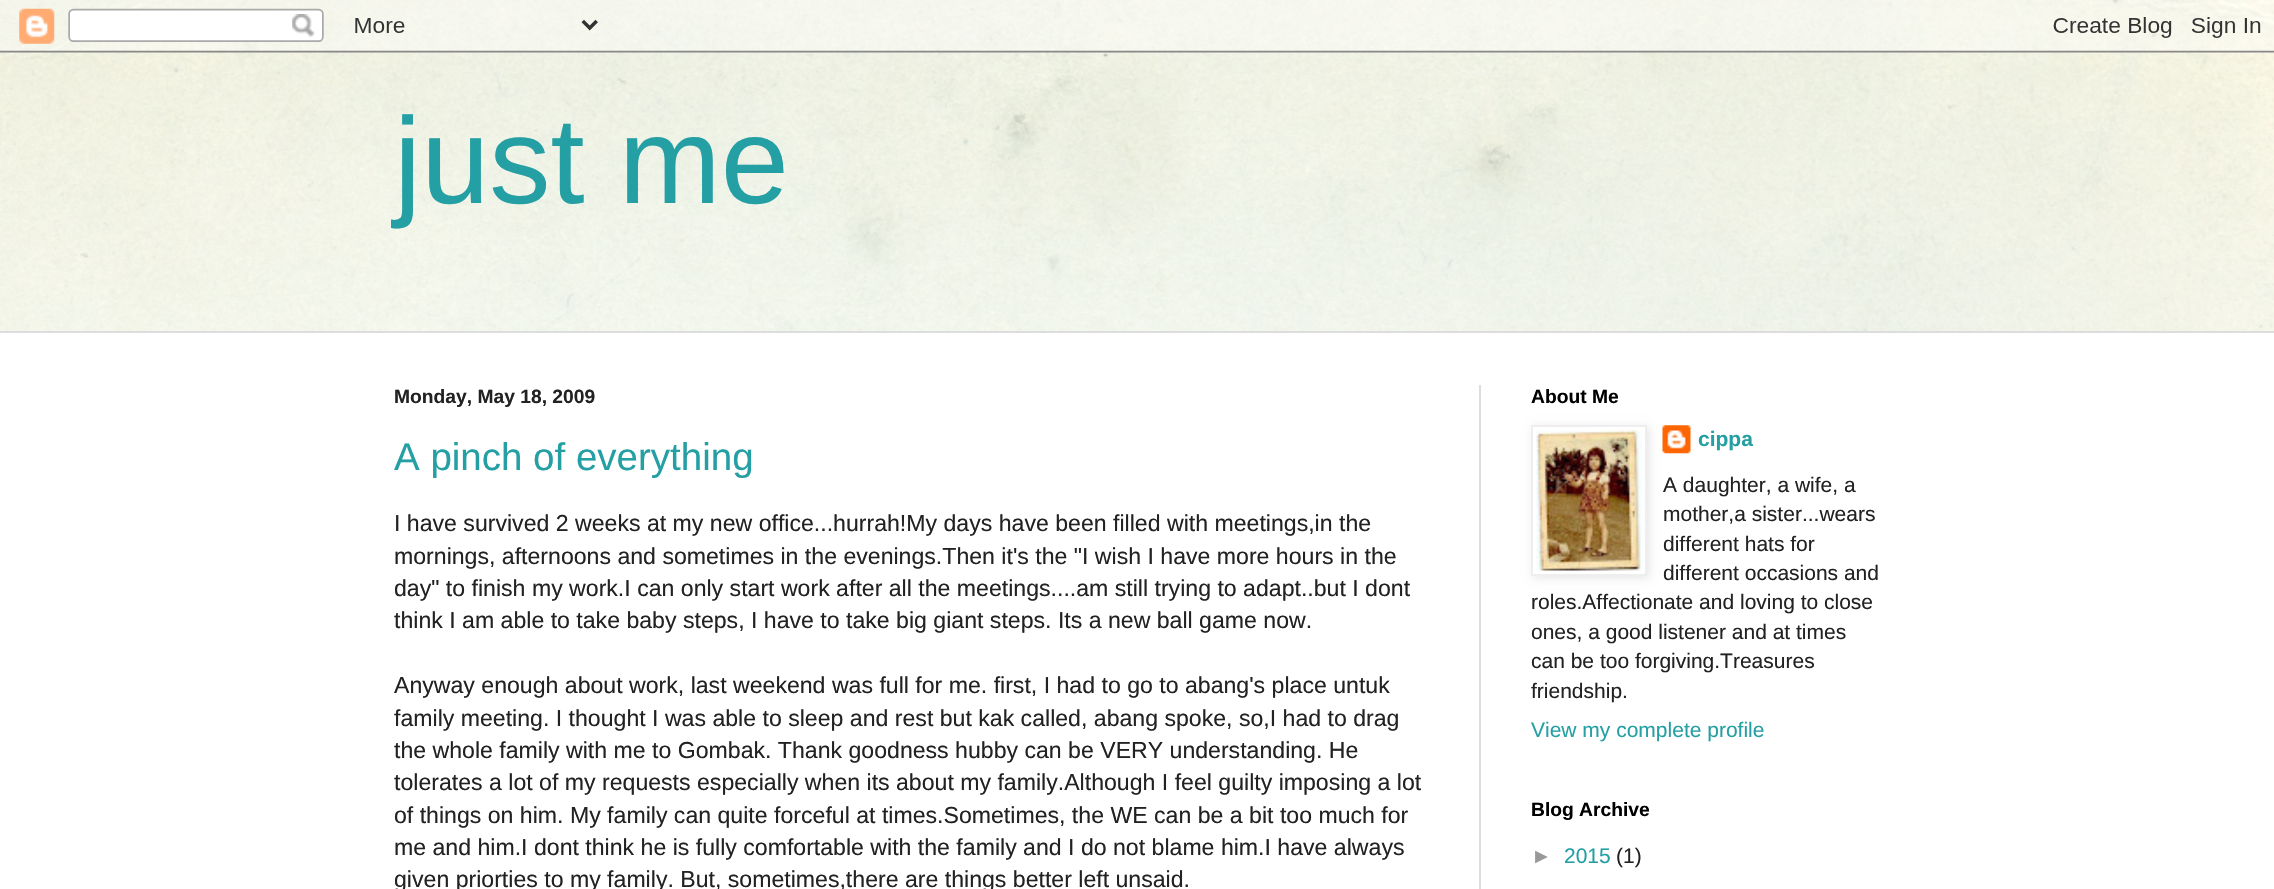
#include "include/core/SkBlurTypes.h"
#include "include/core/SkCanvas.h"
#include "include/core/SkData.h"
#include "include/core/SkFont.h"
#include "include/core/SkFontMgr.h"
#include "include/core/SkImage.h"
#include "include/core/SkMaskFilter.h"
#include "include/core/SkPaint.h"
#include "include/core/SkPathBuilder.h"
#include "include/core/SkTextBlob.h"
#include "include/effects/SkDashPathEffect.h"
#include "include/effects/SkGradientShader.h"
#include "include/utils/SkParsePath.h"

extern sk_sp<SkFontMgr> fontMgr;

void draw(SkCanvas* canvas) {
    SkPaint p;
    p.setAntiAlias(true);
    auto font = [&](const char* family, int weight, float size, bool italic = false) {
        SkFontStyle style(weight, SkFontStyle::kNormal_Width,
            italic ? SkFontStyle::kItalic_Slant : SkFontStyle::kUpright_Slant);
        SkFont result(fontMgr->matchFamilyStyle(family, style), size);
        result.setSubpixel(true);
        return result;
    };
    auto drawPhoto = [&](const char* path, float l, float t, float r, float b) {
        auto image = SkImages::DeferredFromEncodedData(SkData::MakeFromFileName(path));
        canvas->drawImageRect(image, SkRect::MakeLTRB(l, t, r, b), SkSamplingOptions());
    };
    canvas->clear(0xFFFFFFFF);
    drawPhoto("media/1.png", 0, 0, 2274, 331);
    drawPhoto("media/2.png", 0, 0, 2274, 331);
    drawPhoto("media/3.png", 0, 0, 2274, 53);
    auto font1 = font("Liberation Sans", 400, 122.5f);
    p.setColor(0xFF249FA3);
    canvas->drawString("just me", 394, 203, font1, p);
    p.setColor(0xFFDDDDDD);
    canvas->drawRect(SkRect::MakeLTRB(0, 331, 2274, 333), p);
    canvas->drawRect(SkRect::MakeLTRB(1479, 385, 1481, 889), p);
    auto font2 = font("Liberation Sans", 700, 19.25f);
    p.setColor(0xFF222222);
    canvas->drawString("Monday, May 18, 2009", 394, 403, font2, p);
    auto font3 = font("Liberation Sans", 400, 38.5f);
    p.setColor(0xFF249FA3);
    canvas->drawString("A pinch of everything", 394, 470, font3, p);
    auto font4 = font("Liberation Sans", 400, 23.1f);
    p.setColor(0xFF222222);
    {
        const struct { const char* s; float x, y; } items[] = {
            {"I have survived 2 weeks at my new office...hurrah!My days have been filled with meetings,in the", 394, 531},
            {"mornings, afternoons and sometimes in the evenings.Then it's the \"I wish I have more hours in the", 394, 564},
            {"day\" to finish my work.I can only start work after all the meetings....am still trying to adapt..but I dont", 394, 596},
            {"think I am able to take baby steps, I have to take big giant steps. Its a new ball game now.", 394, 628},
            {"Anyway enough about work, last weekend was full for me. first, I had to go to abang's place untuk", 394, 693},
            {"family meeting. I thought I was able to sleep and rest but kak called, abang spoke, so,I had to drag", 394, 726},
            {"the whole family with me to Gombak. Thank goodness hubby can be VERY understanding. He", 394, 758},
            {"tolerates a lot of my requests especially when its about my family.Although I feel guilty imposing a lot", 394, 790},
            {"of things on him. My family can quite forceful at times.Sometimes, the WE can be a bit too much for", 394, 823},
            {"me and him.I dont think he is fully comfortable with the family and I do not blame him.I have always", 394, 855},
            {"given priorties to my family. But, sometimes,there are things better left unsaid.", 394, 887},
        };
        for (auto [s, x, y] : items) {
            canvas->drawString(s, x, y, font4, p);
        }
    }
    p.setColor(0xFF000000);
    canvas->drawString("About Me", 1531, 403, font2, p);
    drawPhoto("media/5.png", 1662, 425, 1691, 454);
    p.setColor(0x1A000000);
    p.setMaskFilter(SkMaskFilter::MakeBlur(kNormal_SkBlurStyle, 4.5f));
    canvas->drawRect(SkRect::MakeLTRB(1533, 427, 1649, 578), p);
    p.setMaskFilter(nullptr);
    p.setColor(0xFFFFFFFF);
    canvas->drawRect(SkRect::MakeLTRB(1532, 426, 1646, 575), p);
    p.setStyle(SkPaint::kStroke_Style);
    p.setStrokeWidth(2);
    p.setColor(0xFFEEEEEE);
    canvas->drawRect(SkRect::MakeLTRB(1532, 426, 1646, 575), p);
    drawPhoto("media/4.png", 1536, 430, 1642, 571);
    auto font5 = font("Liberation Sans", 700, 21);
    p.setStyle(SkPaint::kFill_Style);
    p.setColor(0xFF249FA3);
    canvas->drawString("cippa", 1698, 446, font5, p);
    auto font6 = font("Liberation Sans", 400, 21);
    p.setColor(0xFF222222);
    {
        const struct { const char* s; float x, y; } items[] = {
            {"A daughter, a wife, a", 1663, 492},
            {"mother,a sister...wears", 1663, 521},
            {"different hats for", 1663, 551},
            {"different occasions and", 1663, 580},
            {"roles.Affectionate and loving to close", 1531, 609},
            {"ones, a good listener and at times", 1531, 639},
            {"can be too forgiving.Treasures", 1531, 668},
            {"friendship.", 1531, 698},
        };
        for (auto [s, x, y] : items) {
            canvas->drawString(s, x, y, font6, p);
        }
    }
    p.setColor(0xFF249FA3);
    canvas->drawString("View my complete profile", 1531, 737, font6, p);
    p.setColor(0xFF000000);
    canvas->drawString("Blog Archive", 1531, 816, font2, p);
    p.setColor(0xFF999999);
    canvas->drawString("►", 1531, 863, font6, p);
    p.setColor(0xFF249FA3);
    canvas->drawString("2015", 1564, 863, font6, p);
    p.setColor(0xFF222222);
    canvas->drawString("(1)", 1616, 863, font6, p);
}
